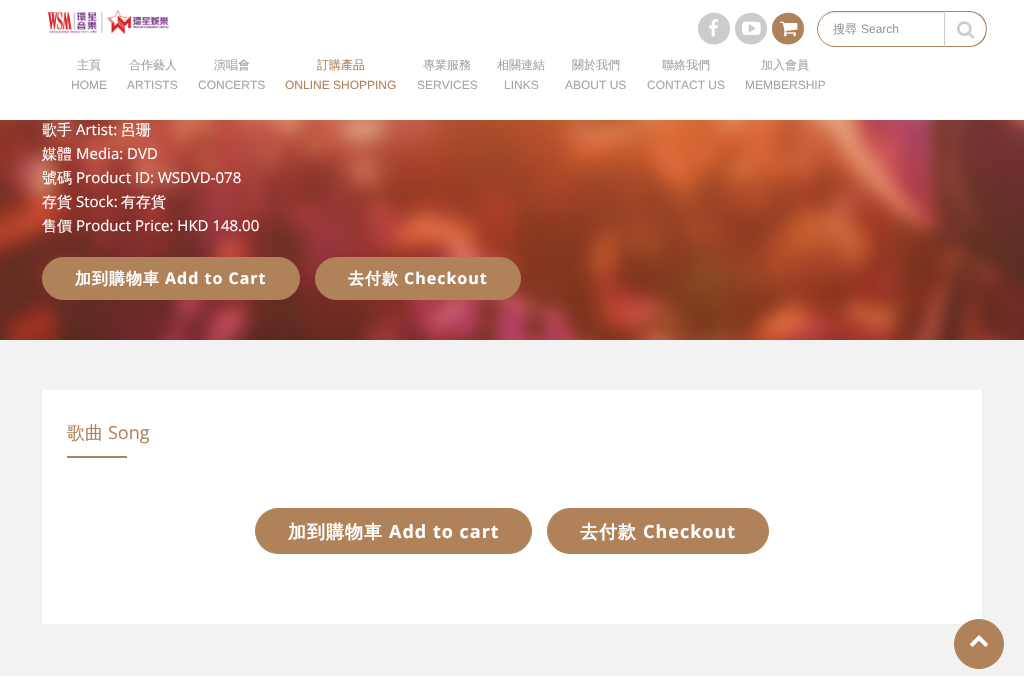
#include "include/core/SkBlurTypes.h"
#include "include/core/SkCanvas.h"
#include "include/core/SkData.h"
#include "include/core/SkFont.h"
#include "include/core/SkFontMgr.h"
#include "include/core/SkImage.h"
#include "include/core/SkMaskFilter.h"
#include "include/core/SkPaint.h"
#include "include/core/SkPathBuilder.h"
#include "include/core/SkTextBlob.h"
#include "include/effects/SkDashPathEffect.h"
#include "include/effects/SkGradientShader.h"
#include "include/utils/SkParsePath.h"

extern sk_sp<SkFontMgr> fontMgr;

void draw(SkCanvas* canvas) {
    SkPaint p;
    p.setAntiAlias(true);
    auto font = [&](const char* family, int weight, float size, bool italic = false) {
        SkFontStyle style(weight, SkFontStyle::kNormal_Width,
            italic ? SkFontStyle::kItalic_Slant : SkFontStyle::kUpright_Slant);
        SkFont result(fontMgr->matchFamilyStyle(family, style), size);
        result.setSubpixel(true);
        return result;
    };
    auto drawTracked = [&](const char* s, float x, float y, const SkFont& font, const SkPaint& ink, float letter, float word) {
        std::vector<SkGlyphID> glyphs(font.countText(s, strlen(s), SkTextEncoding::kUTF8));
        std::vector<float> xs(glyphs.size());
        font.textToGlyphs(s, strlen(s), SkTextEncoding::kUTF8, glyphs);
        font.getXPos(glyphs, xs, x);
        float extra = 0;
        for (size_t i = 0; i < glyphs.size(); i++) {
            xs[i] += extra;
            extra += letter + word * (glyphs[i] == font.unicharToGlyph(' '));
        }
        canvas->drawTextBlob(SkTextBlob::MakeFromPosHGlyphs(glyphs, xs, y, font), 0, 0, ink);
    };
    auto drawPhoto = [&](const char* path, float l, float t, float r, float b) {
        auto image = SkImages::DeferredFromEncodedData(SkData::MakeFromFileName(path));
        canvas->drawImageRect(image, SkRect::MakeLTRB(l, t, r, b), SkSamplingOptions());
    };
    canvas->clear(0xFFF2F2F2);
    p.setColor(0xFFFFFFFF);
    canvas->drawRect(SkRect::MakeLTRB(0, 0, 1024, 120), p);
    drawPhoto("media/1.png", 47, 10, 169, 34);
    p.setColor(0xFFCCCCCC);
    canvas->drawPath(SkPathBuilder().moveTo(728, 20.5f).cubicTo(729.5f, 23.5f, 730, 26.5f, 730, 29.5f).cubicTo(729, 45.5f, 708, 50, 700, 36.5f).cubicTo(698.5f, 34, 698, 31, 698, 27.5f).cubicTo(699, 12, 720, 7, 728, 20.5f).close().detach(), p);
    drawPhoto("media/2.png", 709, 19, 718, 37);
    canvas->drawPath(SkPathBuilder().moveTo(765, 20.5f).cubicTo(766.5f, 23.5f, 767, 26.5f, 767, 29.5f).cubicTo(766, 45.5f, 745, 50, 737, 36.5f).cubicTo(735.5f, 34, 735, 31, 735, 27.5f).cubicTo(736, 12, 757, 7, 765, 20.5f).close().detach(), p);
    drawPhoto("media/3.png", 742, 21, 761, 35);
    p.setColor(0xFFAF825A);
    canvas->drawPath(SkPathBuilder().moveTo(802, 20.5f).cubicTo(803.5f, 23.5f, 804, 26.5f, 804, 29.5f).cubicTo(803, 45.5f, 782, 50, 774, 36.5f).cubicTo(772.5f, 34, 772, 31, 772, 27.5f).cubicTo(773, 12, 794, 7, 802, 20.5f).close().detach(), p);
    drawPhoto("media/4.png", 780, 21, 798, 37);
    p.setColor(0xFFECECEC);
    canvas->drawPath(SkPathBuilder().moveTo(835, 13).lineTo(944, 13).lineTo(944, 12).lineTo(835, 12).cubicTo(826, 12, 818, 20, 818, 29).lineTo(818, 30).cubicTo(818, 21, 826, 13, 835, 13).close().detach(), p);
    p.setStyle(SkPaint::kStroke_Style);
    p.setStrokeWidth(1);
    p.setColor(0xFFAF825A);
    canvas->drawPath(SkPathBuilder().moveTo(835, 11.5f).lineTo(944.5f, 11.5f).lineTo(944.5f, 46.5f).lineTo(835, 46.5f).cubicTo(825.5f, 46.5f, 817.5f, 38.5f, 817.5f, 29).cubicTo(817.5f, 19.5f, 825.5f, 11.5f, 835, 11.5f).close().detach(), p);
    auto font1 = font("WenQuanYi Zen Hei", 500, 12);
    p.setStyle(SkPaint::kFill_Style);
    p.setColor(0xFF999999);
    canvas->drawString("搜尋", 833, 33, font1, p);
    auto font2 = font("Liberation Sans", 400, 12);
    canvas->drawString("Search", 861, 33, font2, p);
    p.setColor(0xFFFFFFFF);
    canvas->drawPath(SkPathBuilder().moveTo(944, 11).lineTo(969, 11).cubicTo(979, 11, 987, 19, 987, 29).cubicTo(987, 39, 979, 47, 969, 47).lineTo(944, 47).close().detach(), p);
    p.setColor(0xFFAF825A);
    canvas->drawPath(SkPathBuilder().moveTo(944, 11).lineTo(945, 12).lineTo(969, 12).cubicTo(973.5f, 12, 978, 14, 981, 17).lineTo(982, 16).cubicTo(978.5f, 13, 974, 11, 969, 11).close().detach(), p);
    canvas->drawPath(SkPathBuilder().moveTo(982, 16).cubicTo(988.5f, 23, 988.5f, 35, 982, 42).lineTo(981, 41).cubicTo(987.5f, 34, 987.5f, 24, 981, 17).close().detach(), p);
    canvas->drawPath(SkPathBuilder().moveTo(969, 47).cubicTo(974, 47, 978.5f, 45, 982, 42).lineTo(981, 41).cubicTo(978, 44, 973.5f, 46, 969, 46).lineTo(945, 46).lineTo(944, 47).close().detach(), p);
    p.setColor(0xFFCCCCCC);
    canvas->drawPath(SkPathBuilder().moveTo(944, 11).lineTo(944, 47).lineTo(945, 46).lineTo(945, 12).close().detach(), p);
    drawPhoto("media/5.png", 957, 21, 975, 39);
    p.setColor(0xFFA4A4A4);
    canvas->drawString("主頁", 77, 69, font1, p);
    canvas->drawString("HOME", 71, 89, font2, p);
    canvas->drawString("合作藝人", 129, 69, font1, p);
    canvas->drawString("ARTISTS", 127, 89, font2, p);
    canvas->drawString("演唱會", 214, 69, font1, p);
    canvas->drawString("CONCERTS", 198, 89, font2, p);
    p.setColor(0xFFAF825A);
    canvas->drawString("訂購產品", 317, 69, font1, p);
    canvas->drawString("ONLINE SHOPPING", 285, 89, font2, p);
    p.setColor(0xFFA4A4A4);
    canvas->drawString("專業服務", 423, 69, font1, p);
    canvas->drawString("SERVICES", 417, 89, font2, p);
    canvas->drawString("相關連結", 497, 69, font1, p);
    canvas->drawString("LINKS", 504, 89, font2, p);
    canvas->drawString("關於我們", 572, 69, font1, p);
    canvas->drawString("ABOUT US", 565, 89, font2, p);
    canvas->drawString("聯絡我們", 662, 69, font1, p);
    canvas->drawString("CONTACT US", 647, 89, font2, p);
    canvas->drawString("加入會員", 761, 69, font1, p);
    canvas->drawString("MEMBERSHIP", 745, 89, font2, p);
    drawPhoto("media/6.png", 0, 120, 1024, 340);
    auto font3 = font("WenQuanYi Zen Hei", 500, 15);
    p.setColor(0xFFFFFFFF);
    canvas->drawString("歌手", 42, 135, font3, p);
    auto font4 = font("Open Sans", 400, 15);
    canvas->drawString("Artist:", 76, 135, font4, p);
    canvas->drawString("呂珊", 121, 135, font3, p);
    canvas->drawString("媒體", 42, 159, font3, p);
    canvas->drawString("Media: DVD", 76, 159, font4, p);
    canvas->drawString("號碼", 42, 183, font3, p);
    canvas->drawString("Product ID: WSDVD-078", 76, 183, font4, p);
    canvas->drawString("存貨", 42, 207, font3, p);
    canvas->drawString("Stock:", 76, 207, font4, p);
    canvas->drawString("有存貨", 121, 207, font3, p);
    canvas->drawString("售價", 42, 231, font3, p);
    canvas->drawString("Product Price: HKD 148.00", 76, 231, font4, p);
    p.setColor(0xFFAF825A);
    canvas->drawRoundRect(SkRect::MakeLTRB(42.5f, 257.5f, 299.5f, 299.5f), 21, 21, p);
    p.setStyle(SkPaint::kStroke_Style);
    canvas->drawRoundRect(SkRect::MakeLTRB(42.5f, 257.5f, 299.5f, 299.5f), 21, 21, p);
    auto font5 = font("WenQuanYi Zen Hei", 700, 16);
    p.setStyle(SkPaint::kFill_Style);
    p.setColor(0xFFFFFFFF);
    drawTracked("加到購物車", 75, 284, font5, p, 1, 0);
    auto font6 = font("Open Sans", 700, 16);
    drawTracked("Add to Cart", 165, 284, font6, p, 1, 0);
    p.setColor(0xFFAF825A);
    canvas->drawRoundRect(SkRect::MakeLTRB(315.5f, 257.5f, 520.5f, 299.5f), 21, 21, p);
    p.setStyle(SkPaint::kStroke_Style);
    canvas->drawRoundRect(SkRect::MakeLTRB(315.5f, 257.5f, 520.5f, 299.5f), 21, 21, p);
    p.setStyle(SkPaint::kFill_Style);
    p.setColor(0xFFFFFFFF);
    drawTracked("去付款", 348, 284, font5, p, 1, 0);
    drawTracked("Checkout", 404, 284, font6, p, 1, 0);
    canvas->drawRect(SkRect::MakeLTRB(42, 390, 982, 624), p);
    auto font7 = font("WenQuanYi Zen Hei", 500, 18);
    p.setColor(0xFFAF825A);
    canvas->drawString("歌曲", 67, 439, font7, p);
    auto font8 = font("Open Sans", 400, 18);
    canvas->drawString("Song", 108, 439, font8, p);
    canvas->drawRect(SkRect::MakeLTRB(67, 456, 127, 458), p);
    canvas->drawRoundRect(SkRect::MakeLTRB(255.5f, 508.5f, 531.5f, 553.5f), 22.5f, 22.5f, p);
    p.setStyle(SkPaint::kStroke_Style);
    canvas->drawRoundRect(SkRect::MakeLTRB(255.5f, 508.5f, 531.5f, 553.5f), 22.5f, 22.5f, p);
    auto font9 = font("WenQuanYi Zen Hei", 700, 18);
    p.setStyle(SkPaint::kFill_Style);
    p.setColor(0xFFFFFFFF);
    drawTracked("加到購物車", 288, 538, font9, p, 1, 0);
    auto font10 = font("Open Sans", 700, 18);
    drawTracked("Add to cart", 389, 538, font10, p, 1, 0);
    p.setColor(0xFFAF825A);
    canvas->drawRoundRect(SkRect::MakeLTRB(547.5f, 508.5f, 768.5f, 553.5f), 22.5f, 22.5f, p);
    p.setStyle(SkPaint::kStroke_Style);
    canvas->drawRoundRect(SkRect::MakeLTRB(547.5f, 508.5f, 768.5f, 553.5f), 22.5f, 22.5f, p);
    p.setStyle(SkPaint::kFill_Style);
    p.setColor(0xFFFFFFFF);
    drawTracked("去付款", 580, 538, font9, p, 1, 0);
    drawTracked("Checkout", 643, 538, font10, p, 1, 0);
    p.setColor(0xFFAF825A);
    canvas->drawCircle(979, 644, 24.5f, p);
    p.setStyle(SkPaint::kStroke_Style);
    canvas->drawCircle(979, 644, 24.5f, p);
    drawPhoto("media/7.png", 970, 635, 988, 647);
    p.setStyle(SkPaint::kFill_Style);
    p.setColor(0xFFFFFFFF);
    canvas->drawRect(SkRect::MakeLTRB(0, 676, 1024, 683), p);
}
